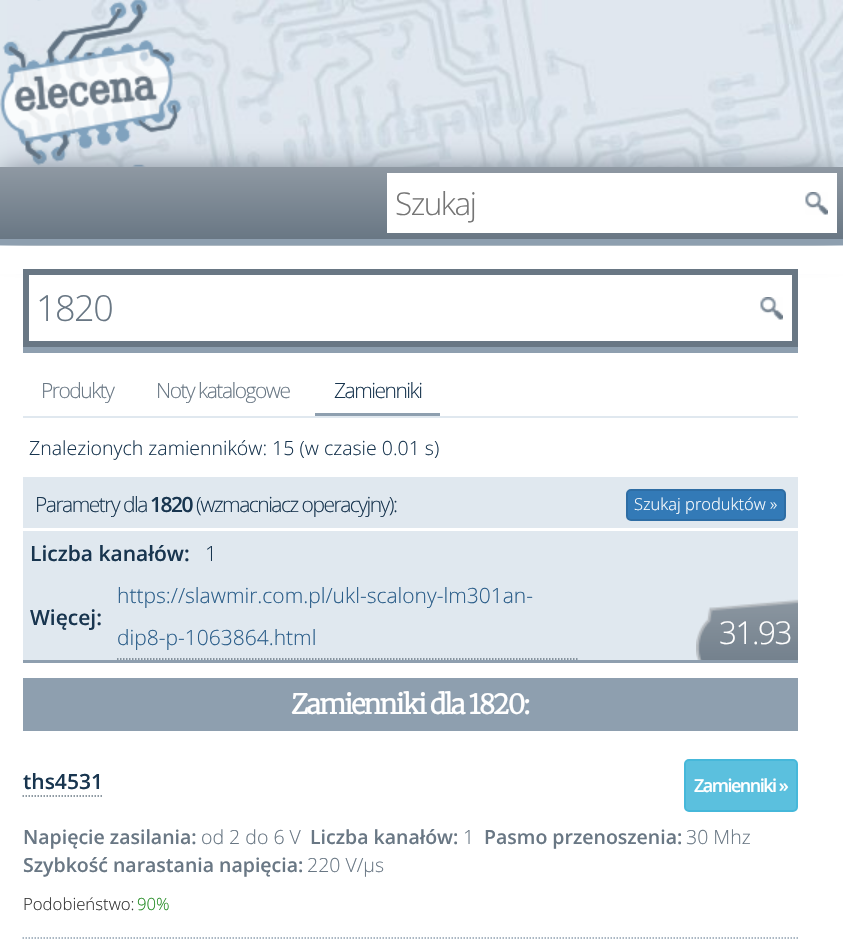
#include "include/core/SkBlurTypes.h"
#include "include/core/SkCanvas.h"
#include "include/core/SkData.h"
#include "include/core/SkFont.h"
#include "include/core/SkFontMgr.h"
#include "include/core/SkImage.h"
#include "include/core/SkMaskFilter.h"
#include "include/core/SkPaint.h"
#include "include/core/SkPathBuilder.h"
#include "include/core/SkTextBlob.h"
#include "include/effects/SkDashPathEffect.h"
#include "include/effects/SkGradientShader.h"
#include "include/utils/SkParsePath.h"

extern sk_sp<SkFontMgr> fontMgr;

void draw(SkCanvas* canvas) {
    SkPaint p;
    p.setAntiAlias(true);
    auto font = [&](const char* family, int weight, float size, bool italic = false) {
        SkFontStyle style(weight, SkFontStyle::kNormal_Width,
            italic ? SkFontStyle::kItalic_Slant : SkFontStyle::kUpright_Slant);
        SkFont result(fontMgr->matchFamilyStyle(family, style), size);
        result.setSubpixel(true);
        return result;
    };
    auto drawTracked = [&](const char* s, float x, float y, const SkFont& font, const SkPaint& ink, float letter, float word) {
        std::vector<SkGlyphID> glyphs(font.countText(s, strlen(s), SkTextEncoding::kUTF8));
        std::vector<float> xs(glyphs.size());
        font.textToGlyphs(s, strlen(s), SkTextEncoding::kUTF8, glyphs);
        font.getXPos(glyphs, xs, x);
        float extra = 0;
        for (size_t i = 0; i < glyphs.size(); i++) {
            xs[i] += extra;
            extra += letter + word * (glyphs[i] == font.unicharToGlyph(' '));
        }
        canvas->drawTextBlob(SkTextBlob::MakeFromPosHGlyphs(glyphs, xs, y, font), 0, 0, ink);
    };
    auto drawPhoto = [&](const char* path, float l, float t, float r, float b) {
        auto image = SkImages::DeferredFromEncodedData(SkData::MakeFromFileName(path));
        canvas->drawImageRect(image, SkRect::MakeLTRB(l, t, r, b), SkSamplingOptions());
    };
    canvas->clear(0xFFFFFFFF);
    {
        const SkColor colors[] = {0xFFE0E8EF, 0xFFD0D8DF};
        const float stops[] = {0.7f, 1};
        const SkPoint ends[] = {{422, 0}, {422, 357}};
        p.setShader(SkGradientShader::MakeLinear(ends, colors, stops, 2, SkTileMode::kClamp));
        p.setAlpha(255);
    }
    canvas->drawRect(SkRect::MakeLTRB(0, 0, 843, 246), p);
    drawPhoto("media/1.png", 7, 0, 843, 167);
    drawPhoto("media/2.png", 0, 0, 182, 167);
    p.setShader(nullptr);
    p.setColor(0xFF697784);
    p.setMaskFilter(SkMaskFilter::MakeBlur(kNormal_SkBlurStyle, 15));
    canvas->drawRect(SkRect::MakeLTRB(3, 170, 840, 242), p);
    p.setMaskFilter(nullptr);
    {
        const SkColor colors[] = {0xFF8F99A3, 0xFF697784};
        const float stops[] = {0, 1};
        const SkPoint ends[] = {{422, 166}, {422, 239}};
        p.setShader(SkGradientShader::MakeLinear(ends, colors, stops, 2, SkTileMode::kClamp));
        p.setAlpha(255);
    }
    canvas->drawRect(SkRect::MakeLTRB(0, 167, 843, 239), p);
    p.setShader(nullptr);
    p.setColor(0xFF8E9FAF);
    canvas->drawRect(SkRect::MakeLTRB(0, 239, 843, 245), p);
    p.setColor(0xFFFFFFFF);
    canvas->drawRect(SkRect::MakeLTRB(387, 173, 837, 233), p);
    auto font1 = font("Open Sans", 300, 31.5f);
    p.setColor(0xFF757575);
    drawTracked("Szukaj", 395, 215, font1, p, -1.5f, 0);
    drawPhoto("media/3.png", 805, 192, 828, 215);
    {
        const struct { float l, t, r, b; SkColor color; } items[] = {
            {0, 246, 843, 274, 0xFFFFFFFF},
            {23, 269, 798, 347, 0xFF697784},
            {23, 347, 798, 353, 0xFF8E9FAF},
            {29, 275, 792, 341, 0xFFFFFFFF},
        };
        for (auto [l, t, r, b, color] : items) {
            p.setColor(color);
            canvas->drawRect(SkRect::MakeLTRB(l, t, r, b), p);
        }
    }
    auto font2 = font("Open Sans", 300, 36);
    p.setColor(0xFF697784);
    drawTracked("1820", 36, 321, font2, p, -1.5f, 0);
    drawPhoto("media/3.png", 760, 297, 783, 320);
    p.setColor(0xFFE0E8EF);
    canvas->drawRect(SkRect::MakeLTRB(23, 416, 798, 418), p);
    auto font3 = font("Open Sans", 300, 21);
    p.setColor(0xFF697784);
    drawTracked("Produkty", 41, 398, font3, p, -1.5f, 0);
    drawTracked("Noty katalogowe", 156, 398, font3, p, -1.5f, 0);
    p.setColor(0xFF8E9FAF);
    canvas->drawRect(SkRect::MakeLTRB(315, 413, 440, 416), p);
    p.setColor(0xFF18354F);
    drawTracked("Zamienniki", 334, 398, font3, p, -1.5f, 0);
    p.setColor(0xFFE0E8EF);
    canvas->drawRect(SkRect::MakeLTRB(23, 477, 798, 660), p);
    auto font4 = font("Open Sans", 300, 19.5f);
    p.setColor(0xFF18354F);
    canvas->drawString("Znalezionych zamienników: 15 (w czasie 0.01 s)", 29, 455, font4, p);
    p.setColor(0xFF8E9FAF);
    canvas->drawRect(SkRect::MakeLTRB(23, 660, 798, 663), p);
    p.setColor(0xFF18354F);
    drawTracked("Parametry dla", 35, 512, font3, p, -1.5f, 0);
    auto font5 = font("Open Sans", 600, 21);
    drawTracked("1820", 150, 512, font5, p, -1.5f, 0);
    drawTracked("(wzmacniacz operacyjny):", 196, 512, font3, p, -1.5f, 0);
    p.setColor(0xFF337AB7);
    canvas->drawRoundRect(SkRect::MakeLTRB(627, 490, 785, 520), 4, 4, p);
    p.setStyle(SkPaint::kStroke_Style);
    p.setStrokeWidth(2);
    p.setColor(0xFF2E6DA4);
    canvas->drawRoundRect(SkRect::MakeLTRB(627, 490, 785, 520), 4, 4, p);
    auto font6 = font("Open Sans", 300, 16.5f);
    p.setStyle(SkPaint::kFill_Style);
    p.setColor(0xFFFFFFFF);
    canvas->drawString("Szukaj produktów »", 634, 510, font6, p);
    canvas->drawRect(SkRect::MakeLTRB(23, 528, 798, 531), p);
    p.setColor(0xFF18354F);
    canvas->drawString("Liczba kanałów:", 30, 561, font5, p);
    canvas->drawString("1", 205, 561, font3, p);
    canvas->drawString("Więcej:", 30, 625, font5, p);
    p.setStyle(SkPaint::kStroke_Style);
    p.setStrokeWidth(1.5f);
    p.setColor(0xFF697784);
    p.setPathEffect(SkDashPathEffect::Make({{1.5f, 1.5f}}, 0));
    canvas->drawPath(SkPathBuilder().moveTo(117, 659).lineTo(579, 659).detach(), p);
    p.setPathEffect(nullptr);
    p.setStyle(SkPaint::kFill_Style);
    p.setColor(0xFF2A5D89);
    canvas->drawString("https://slawmir.com.pl/ukl-scalony-lm301an-", 117, 603, font3, p);
    canvas->drawString("dip8-p-1063864.html", 117, 645, font3, p);
    drawPhoto("media/4.png", 696, 599, 798, 660);
    p.setColor(0xFFFFFFFF);
    drawTracked("31.93", 719, 644, font1, p, -1.5f, 0);
    p.setColor(0xFF8E9FAF);
    canvas->drawRect(SkRect::MakeLTRB(23, 678, 798, 731), p);
    auto font7 = font("Merriweather", 700, 27);
    p.setColor(0xFFFFFFFF);
    drawTracked("Zamienniki dla 1820:", 291, 714, font7, p, -1.5f, 0);
    p.setColor(0xFF18354F);
    canvas->drawString("ths4531", 23, 789, font5, p);
    p.setStyle(SkPaint::kStroke_Style);
    p.setColor(0xFF697784);
    p.setPathEffect(SkDashPathEffect::Make({{1.5f, 1.5f}}, 0));
    canvas->drawPath(SkPathBuilder().moveTo(22.5f, 796).lineTo(102, 796).detach(), p);
    p.setPathEffect(nullptr);
    p.setStyle(SkPaint::kFill_Style);
    p.setColor(0xFF5BC0DE);
    canvas->drawRoundRect(SkRect::MakeLTRB(685, 760, 797, 811), 4, 4, p);
    p.setStyle(SkPaint::kStroke_Style);
    p.setStrokeWidth(2);
    p.setColor(0xFF46B8DA);
    canvas->drawRoundRect(SkRect::MakeLTRB(685, 760, 797, 811), 4, 4, p);
    auto font8 = font("Open Sans", 600, 18);
    p.setStyle(SkPaint::kFill_Style);
    p.setColor(0xFFFFFFFF);
    drawTracked("Zamienniki »", 694, 792, font8, p, -1.5f, 0);
    auto font9 = font("Open Sans", 600, 19.5f);
    p.setColor(0xFF697784);
    canvas->drawString("Napięcie zasilania:", 23, 844, font9, p);
    canvas->drawString("od 2 do 6 V", 201, 844, font4, p);
    canvas->drawString("Liczba kanałów:", 310, 844, font9, p);
    canvas->drawString("1", 463, 844, font4, p);
    canvas->drawString("Pasmo przenoszenia:", 484, 844, font9, p);
    canvas->drawString("30 Mhz", 686, 844, font4, p);
    canvas->drawString("Szybkość narastania napięcia:", 23, 872, font9, p);
    canvas->drawString("220 V/μs", 307, 872, font4, p);
    auto font10 = font("Open Sans", 300, 16.75f);
    p.setColor(0xFF333333);
    canvas->drawString("Podobieństwo:", 23, 910, font10, p);
    p.setColor(0xFF228B22);
    canvas->drawString("90%", 137, 910, font10, p);
    p.setStyle(SkPaint::kStroke_Style);
    p.setStrokeWidth(1.5f);
    p.setColor(0xFF8E9FAF);
    p.setPathEffect(SkDashPathEffect::Make({{1.5f, 1.5f}}, 0));
    canvas->drawPath(SkPathBuilder().moveTo(22.5f, 938).lineTo(798, 938).detach(), p);
    p.setPathEffect(nullptr);
}
